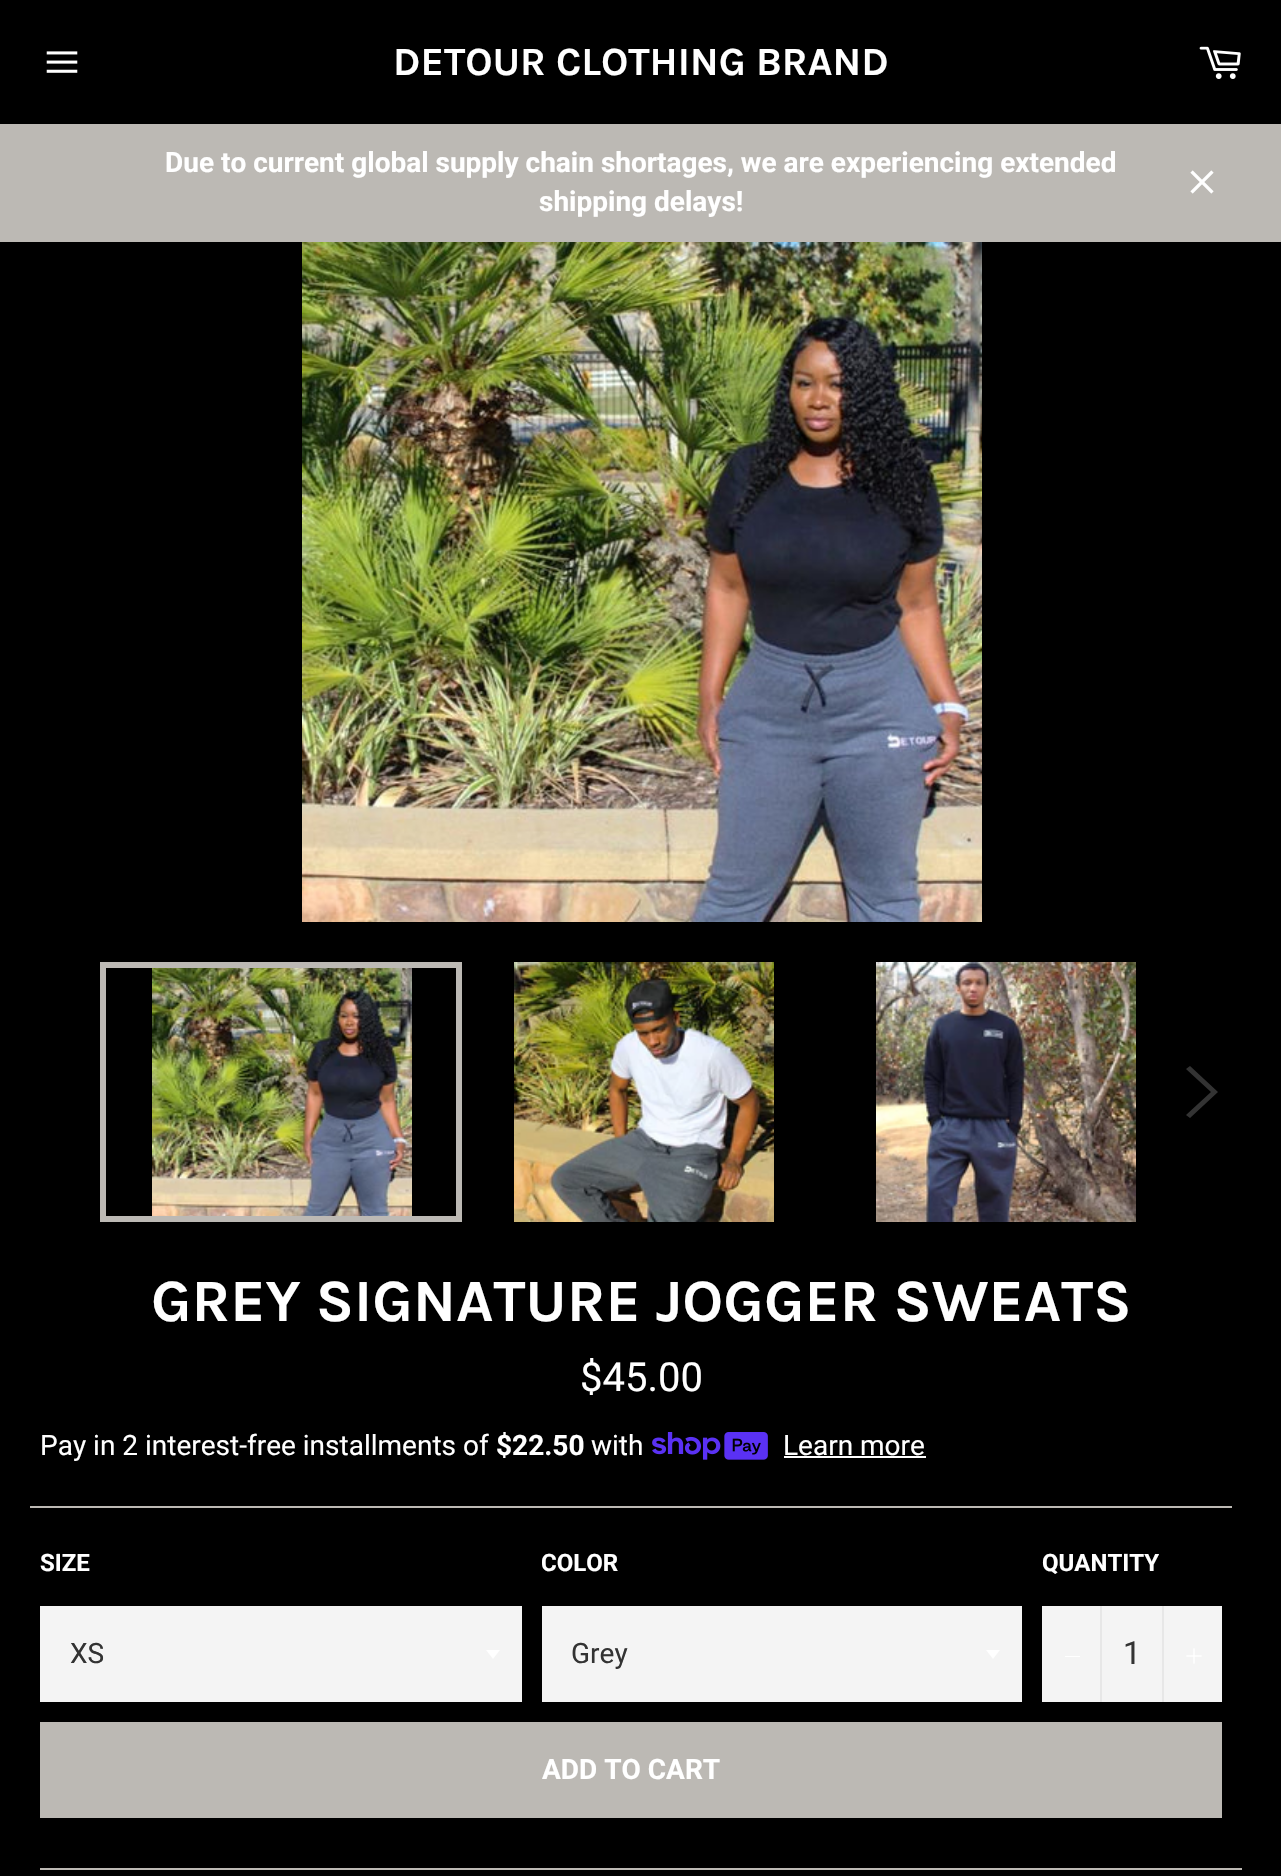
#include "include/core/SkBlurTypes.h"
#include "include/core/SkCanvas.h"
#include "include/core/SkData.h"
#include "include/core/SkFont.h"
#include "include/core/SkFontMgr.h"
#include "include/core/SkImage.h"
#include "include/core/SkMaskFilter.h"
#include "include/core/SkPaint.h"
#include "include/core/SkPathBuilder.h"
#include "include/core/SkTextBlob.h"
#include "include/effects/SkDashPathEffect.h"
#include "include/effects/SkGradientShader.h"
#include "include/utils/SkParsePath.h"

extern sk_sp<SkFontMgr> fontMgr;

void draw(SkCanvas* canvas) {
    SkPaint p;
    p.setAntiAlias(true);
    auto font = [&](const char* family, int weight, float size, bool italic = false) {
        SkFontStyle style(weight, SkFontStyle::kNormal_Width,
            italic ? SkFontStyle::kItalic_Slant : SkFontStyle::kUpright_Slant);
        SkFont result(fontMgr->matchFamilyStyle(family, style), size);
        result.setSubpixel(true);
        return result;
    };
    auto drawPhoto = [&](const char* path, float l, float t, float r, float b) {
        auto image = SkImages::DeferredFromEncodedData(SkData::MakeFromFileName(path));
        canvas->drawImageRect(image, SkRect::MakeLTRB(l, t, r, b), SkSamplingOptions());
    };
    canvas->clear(0xFF000000);
    drawPhoto("media/1.png", 46, 51, 78, 73);
    auto font1 = font("Karla", 700, 40);
    p.setColor(0xFFFFFFFF);
    canvas->drawString("DETOUR CLOTHING BRAND", 393, 75, font1, p);
    drawPhoto("media/2.png", 1199, 46, 1241, 79);
    p.setColor(0xFFBCB9B4);
    canvas->drawRect(SkRect::MakeLTRB(0, 124, 1281, 242), p);
    auto font2 = font("Roboto", 700, 28);
    p.setColor(0xFFFFFFFF);
    canvas->drawString("Due to current global supply chain shortages, we are experiencing extended", 165, 172, font2, p);
    canvas->drawString("shipping delays!", 539, 211, font2, p);
    drawPhoto("media/3.png", 1190, 170, 1214, 194);
    drawPhoto("media/4.png", 302, 242, 982, 922);
    drawPhoto("media/5.png", 152, 968, 412, 1216);
    p.setStyle(SkPaint::kStroke_Style);
    p.setStrokeWidth(6);
    p.setColor(0xFFBCB9B4);
    canvas->drawRect(SkRect::MakeLTRB(103, 965, 459, 1219), p);
    drawPhoto("media/6.png", 514, 962, 774, 1222);
    drawPhoto("media/7.png", 876, 962, 1136, 1222);
    p.setStyle(SkPaint::kFill_Style);
    p.setColor(0xFF333333);
    canvas->drawPath(SkPathBuilder().moveTo(1186, 1069).lineTo(1190, 1066).lineTo(1218, 1092).lineTo(1190, 1118).lineTo(1186, 1115).lineTo(1211, 1092).close().detach(), p);
    auto font3 = font("Karla", 700, 60);
    p.setColor(0xFFFFFFFF);
    canvas->drawString("GREY SIGNATURE JOGGER SWEATS", 151, 1321, font3, p);
    auto font4 = font("Roboto", 400, 40);
    canvas->drawString("$45.00", 580, 1391, font4, p);
    auto font5 = font("Roboto", 400, 28);
    canvas->drawString("Pay in 2 interest-free installments of", 40, 1455, font5, p);
    canvas->drawString("$22.50", 496, 1455, font2, p);
    canvas->drawString("with", 591, 1455, font5, p);
    drawPhoto("media/8.png", 652, 1432, 768, 1460);
    canvas->drawString("Learn more", 783, 1455, font5, p);
    canvas->drawRect(SkRect::MakeLTRB(784, 1456, 926, 1458), p);
    p.setColor(0xFFBCB9B4);
    canvas->drawRect(SkRect::MakeLTRB(30, 1506, 1232, 1508), p);
    auto font6 = font("Roboto", 700, 24);
    p.setColor(0xFFFFFFFF);
    canvas->drawString("SIZE", 40, 1571, font6, p);
    p.setColor(0xFFF4F4F4);
    canvas->drawRect(SkRect::MakeLTRB(40, 1606, 522, 1702), p);
    p.setColor(0xFFFFFFFF);
    canvas->drawPath(SkPathBuilder().moveTo(486, 1650).lineTo(493, 1659).lineTo(500, 1650).close().detach(), p);
    p.setColor(0xFF333333);
    canvas->drawString("XS", 70, 1663, font5, p);
    p.setColor(0xFFFFFFFF);
    canvas->drawString("COLOR", 541, 1571, font6, p);
    p.setColor(0xFFF4F4F4);
    canvas->drawRect(SkRect::MakeLTRB(542, 1606, 1022, 1702), p);
    p.setColor(0xFFFFFFFF);
    canvas->drawPath(SkPathBuilder().moveTo(986, 1650).lineTo(993, 1659).lineTo(1000, 1650).close().detach(), p);
    p.setColor(0xFF333333);
    canvas->drawString("Grey", 571, 1663, font5, p);
    p.setColor(0xFFFFFFFF);
    canvas->drawString("QUANTITY", 1042, 1571, font6, p);
    {
        const struct { float l, t, r, b; SkColor color; } items[] = {
            {1042, 1606, 1222, 1702, 0xFFF4F4F4},
            {1100, 1606, 1102, 1702, 0xFFE7E7E7},
            {1065, 1656, 1080, 1657, 0xFFFFFFFF},
        };
        for (auto [l, t, r, b, color] : items) {
            p.setColor(color);
            canvas->drawRect(SkRect::MakeLTRB(l, t, r, b), p);
        }
    }
    auto font7 = font("Roboto", 400, 32);
    p.setColor(0xFF333333);
    canvas->drawString("1", 1123, 1664, font7, p);
    p.setColor(0xFFE7E7E7);
    canvas->drawRect(SkRect::MakeLTRB(1162, 1606, 1164, 1702), p);
    drawPhoto("media/9.png", 1186, 1648, 1202, 1664);
    p.setColor(0xFFBCB9B4);
    canvas->drawRect(SkRect::MakeLTRB(40, 1722, 1222, 1818), p);
    p.setColor(0xFFFFFFFF);
    canvas->drawString("ADD TO CART", 542, 1779, font2, p);
    p.setColor(0xFFBCB9B4);
    canvas->drawRect(SkRect::MakeLTRB(40, 1868, 1242, 1870), p);
}
